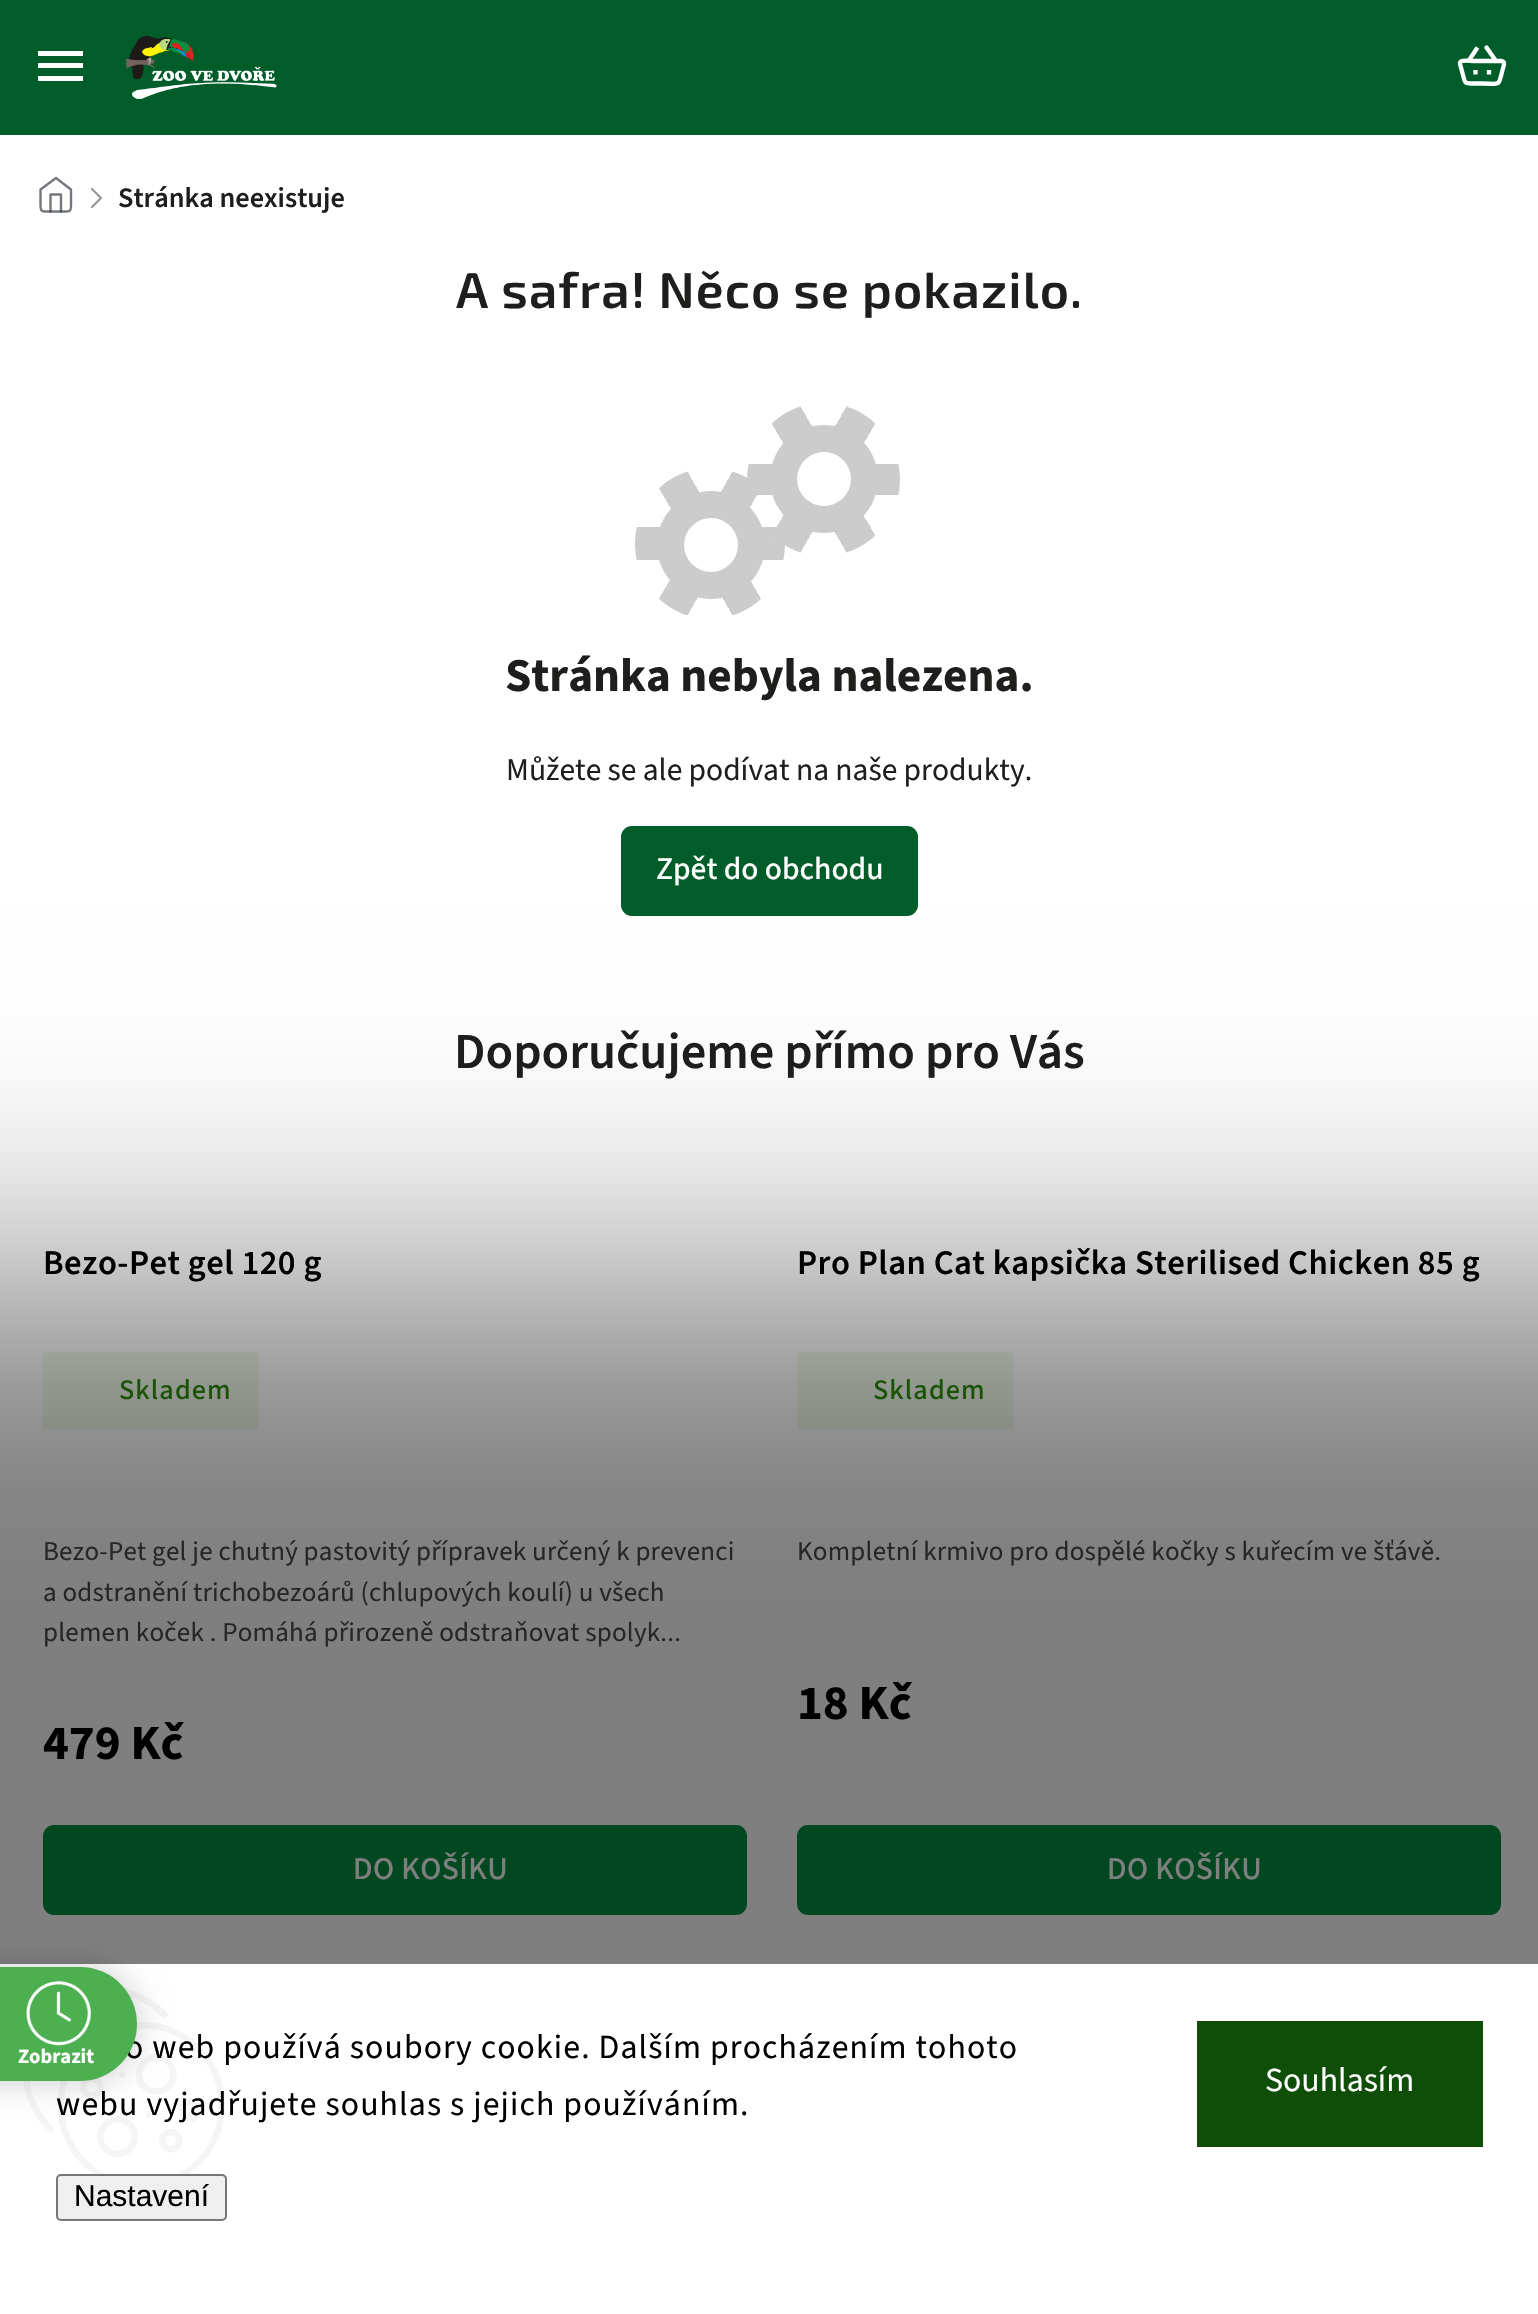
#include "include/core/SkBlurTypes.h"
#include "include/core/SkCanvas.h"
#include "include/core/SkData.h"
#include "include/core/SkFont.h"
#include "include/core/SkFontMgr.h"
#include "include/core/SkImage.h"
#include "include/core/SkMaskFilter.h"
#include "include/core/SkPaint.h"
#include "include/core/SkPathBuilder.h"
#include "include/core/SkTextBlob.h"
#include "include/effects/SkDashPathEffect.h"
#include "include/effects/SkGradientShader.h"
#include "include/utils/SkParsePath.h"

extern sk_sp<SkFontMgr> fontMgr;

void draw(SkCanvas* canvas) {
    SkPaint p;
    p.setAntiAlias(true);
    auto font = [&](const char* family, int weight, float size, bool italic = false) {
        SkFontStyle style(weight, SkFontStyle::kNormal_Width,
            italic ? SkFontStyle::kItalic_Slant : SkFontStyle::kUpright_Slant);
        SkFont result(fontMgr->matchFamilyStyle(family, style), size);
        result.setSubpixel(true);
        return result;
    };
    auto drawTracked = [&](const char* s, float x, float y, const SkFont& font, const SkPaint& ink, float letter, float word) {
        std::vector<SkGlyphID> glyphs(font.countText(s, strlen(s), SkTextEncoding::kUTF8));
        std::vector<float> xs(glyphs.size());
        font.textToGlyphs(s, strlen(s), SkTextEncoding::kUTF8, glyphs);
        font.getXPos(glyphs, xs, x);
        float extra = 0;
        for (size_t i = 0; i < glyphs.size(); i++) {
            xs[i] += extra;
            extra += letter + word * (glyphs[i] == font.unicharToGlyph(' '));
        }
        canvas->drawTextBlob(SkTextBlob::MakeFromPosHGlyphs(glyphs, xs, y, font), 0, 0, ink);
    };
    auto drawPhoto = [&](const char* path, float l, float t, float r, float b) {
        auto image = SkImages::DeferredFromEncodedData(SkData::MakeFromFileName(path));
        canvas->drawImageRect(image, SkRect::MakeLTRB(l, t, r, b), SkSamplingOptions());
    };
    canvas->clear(0xFFFFFFFF);
    p.setColor(0xFF005C29);
    canvas->drawRect(SkRect::MakeLTRB(0, 0, 1538, 135), p);
    p.setColor(0xFFFFFFFF);
    canvas->drawPath(SkPathBuilder().moveTo(38, 81).lineTo(83, 81).lineTo(83, 76).lineTo(38, 76).close().moveTo(38, 68).lineTo(83, 68).lineTo(83, 63).lineTo(38, 63).close().moveTo(38, 51).lineTo(38, 56).lineTo(83, 56).lineTo(83, 51).close().detach(), p);
    drawPhoto("media/1.png", 126, 36, 277, 99);
    p.setStyle(SkPaint::kStroke_Style);
    p.setStrokeWidth(4.3f);
    p.setStrokeJoin(SkPaint::kRound_Join);
    canvas->drawPath(SkPathBuilder().moveTo(1460, 64).cubicTo(1459, 59, 1468.5f, 61, 1475.5f, 61).lineTo(1502, 61).cubicTo(1505, 61.5f, 1504, 65, 1503.5f, 66.5f).lineTo(1502, 72).cubicTo(1498.5f, 87, 1499.5f, 83.5f, 1482, 83.5f).lineTo(1473, 83.5f).cubicTo(1464.5f, 83.5f, 1465, 83, 1463, 75).close().detach(), p);
    p.setStrokeCap(SkPaint::kRound_Cap);
    p.setStrokeJoin(SkPaint::kMiter_Join);
    canvas->drawPath(SkPathBuilder().moveTo(1496, 61).lineTo(1486.5f, 47.5f).moveTo(1475.5f, 70).lineTo(1475.5f, 74.5f).close().moveTo(1489, 70).lineTo(1489, 74.5f).close().moveTo(1468.5f, 61).lineTo(1477.5f, 47.5f).close().detach(), p);
    p.setStrokeWidth(2.4f);
    p.setStrokeJoin(SkPaint::kRound_Join);
    p.setColor(0xFF74777B);
    canvas->drawPath(SkPathBuilder().moveTo(40.5f, 189.5f).lineTo(56, 178).lineTo(71, 189.5f).lineTo(71, 205).cubicTo(71, 211.5f, 70, 211.5f, 63.5f, 211.5f).lineTo(48, 211.5f).cubicTo(41.5f, 211.5f, 40.5f, 211.5f, 40.5f, 205).close().detach(), p);
    p.setColor(0xB3383C43);
    canvas->drawPath(SkPathBuilder().moveTo(50.5f, 211.5f).lineTo(50.5f, 194.5f).lineTo(61, 194.5f).lineTo(61, 211.5f).detach(), p);
    p.setStrokeWidth(2.2f);
    p.setColor(0xFF979797);
    canvas->drawPath(SkPathBuilder().moveTo(92, 207).lineTo(101, 198).lineTo(92, 189).detach(), p);
    auto font1 = font("Source Sans 3", 600, 28.25f);
    p.setStyle(SkPaint::kFill_Style);
    p.setColor(0xFF1E1E1C);
    canvas->drawString("Stránka neexistuje", 118, 207, font1, p);
    auto font2 = font("Exo 2", 600, 50.4f);
    drawTracked("A safra! Něco se pokazilo.", 456, 308, font2, p, 1.12f, 0);
    p.setColor(0xFFCCCCCC);
    canvas->drawCircle(711, 545, 54, p);
    {
        const SkColor colors[] = {0x00CCCCCC, 0xFFCCCCCC, 0xFFCCCCCC, 0x00CCCCCC};
        const float stops[] = {0.42f, 0.42f, 0.58f, 0.58f};
        const SkPoint ends[] = {{621, 492}, {799, 595}};
        p.setShader(SkGradientShader::MakeLinear(ends, colors, stops, 4, SkTileMode::kClamp));
        p.setAlpha(255);
    }
    canvas->drawRoundRect(SkRect::MakeLTRB(635, 468, 785, 619), 75, 75, p);
    {
        const SkColor colors[] = {0x00CCCCCC, 0xFFCCCCCC, 0xFFCCCCCC, 0x00CCCCCC};
        const float stops[] = {0.42f, 0.42f, 0.58f, 0.58f};
        const SkPoint ends[] = {{621, 595}, {799, 492}};
        p.setShader(SkGradientShader::MakeLinear(ends, colors, stops, 4, SkTileMode::kClamp));
        p.setAlpha(255);
    }
    canvas->drawRoundRect(SkRect::MakeLTRB(635, 468, 785, 619), 75, 75, p);
    canvas->save();
    canvas->clipPath(SkPathBuilder().moveTo(710, 468).cubicTo(751.5f, 468, 785, 501.5f, 785, 543).lineTo(785, 544).cubicTo(785, 585.5f, 751.5f, 619, 710, 619).cubicTo(668.5f, 619, 635, 585.5f, 635, 544).lineTo(635, 543).cubicTo(635, 501.5f, 668.5f, 468, 710, 468).close().detach(), true);
    p.setShader(nullptr);
    p.setColor(0xFFCCCCCC);
    canvas->drawRect(SkRect::MakeLTRB(635, 527, 785, 560), p);
    canvas->restore();
    p.setColor(0xFFFFFFFF);
    canvas->drawCircle(711, 545, 27, p);
    p.setColor(0xFFCCCCCC);
    canvas->drawCircle(824, 479, 54, p);
    {
        const SkColor colors[] = {0x00CCCCCC, 0xFFCCCCCC, 0xFFCCCCCC, 0x00CCCCCC};
        const float stops[] = {0.42f, 0.42f, 0.58f, 0.58f};
        const SkPoint ends[] = {{733, 427}, {914, 532}};
        p.setShader(SkGradientShader::MakeLinear(ends, colors, stops, 4, SkTileMode::kClamp));
        p.setAlpha(255);
    }
    canvas->drawCircle(823.5f, 479.5f, 76.5f, p);
    {
        const SkColor colors[] = {0x00CCCCCC, 0xFFCCCCCC, 0xFFCCCCCC, 0x00CCCCCC};
        const float stops[] = {0.42f, 0.42f, 0.58f, 0.58f};
        const SkPoint ends[] = {{733, 532}, {914, 427}};
        p.setShader(SkGradientShader::MakeLinear(ends, colors, stops, 4, SkTileMode::kClamp));
        p.setAlpha(255);
    }
    canvas->drawCircle(823.5f, 479.5f, 76.5f, p);
    canvas->save();
    canvas->clipPath(SkPathBuilder().moveTo(823.5f, 403).cubicTo(865.5f, 403, 900, 437.5f, 900, 479.5f).cubicTo(900, 521.5f, 865.5f, 556, 823.5f, 556).cubicTo(781.5f, 556, 747, 521.5f, 747, 479.5f).cubicTo(747, 437.5f, 781.5f, 403, 823.5f, 403).close().detach(), true);
    p.setShader(nullptr);
    p.setColor(0xFFCCCCCC);
    canvas->drawRect(SkRect::MakeLTRB(747, 464, 900, 495), p);
    canvas->restore();
    p.setColor(0xFFFFFFFF);
    canvas->drawCircle(824, 479, 27, p);
    auto font3 = font("Source Sans 3", 700, 47.25f);
    p.setColor(0xFF1E1E1C);
    canvas->drawString("Stránka nebyla nalezena.", 505, 691, font3, p);
    auto font4 = font("Source Sans 3", 400, 31.5f);
    canvas->drawString("Můžete se ale podívat na naše produkty.", 506, 780, font4, p);
    p.setColor(0xFF005C29);
    canvas->drawRoundRect(SkRect::MakeLTRB(621, 826, 918, 916), 11, 11, p);
    auto font5 = font("Source Sans 3", 500, 31.5f);
    p.setColor(0xFFFFFFFF);
    canvas->drawString("Zpět do obchodu", 656, 879, font5, p);
    auto font6 = font("Source Sans 3", 600, 50.4f);
    p.setColor(0xFF1E1E1C);
    canvas->drawString("Doporučujeme přímo pro Vás", 454, 1068, font6, p);
    auto font7 = font("Source Sans 3", 600, 34.6f);
    p.setColor(0xFF000000);
    drawTracked("Bezo-Pet gel 120 g", 43, 1274, font7, p, 0.45f, 0);
    p.setColor(0xFFEFF8EB);
    canvas->drawRect(SkRect::MakeLTRB(43, 1352, 259, 1429), p);
    auto font8 = font("Source Sans 3", 500, 28.25f);
    p.setColor(0xFF2B890A);
    drawTracked("Skladem", 119, 1399, font8, p, 1.12f, 0);
    auto font9 = font("Source Sans 3", 400, 27);
    p.setColor(0xFF4B4B49);
    {
        const struct { const char* s; float x, y; } items[] = {
            {"Bezo-Pet gel je chutný pastovitý přípravek určený k prevenci", 43, 1560},
            {"a odstranění trichobezoárů (chlupových koulí) u všech", 43, 1601},
            {"plemen koček . Pomáhá přirozeně odstraňovat spolyk...", 43, 1641},
        };
        for (auto [s, x, y] : items) {
            drawTracked(s, x, y, font9, p, 0.23f, 0);
        }
    }
    auto font10 = font("Source Sans 3", 700, 49);
    p.setColor(0xFF000000);
    canvas->drawString("479 Kč", 43, 1759, font10, p);
    p.setColor(0xFF019141);
    canvas->drawRoundRect(SkRect::MakeLTRB(43, 1825, 747, 1915), 11, 11, p);
    p.setColor(0xFFFFFFFF);
    drawTracked("DO KOŠÍKU", 353, 1879, font5, p, 0.45f, 0);
    p.setColor(0xFF000000);
    drawTracked("Pro Plan Cat kapsička Sterilised Chicken 85 g", 797, 1274, font7, p, 0.45f, 0);
    p.setColor(0xFFEFF8EB);
    canvas->drawRect(SkRect::MakeLTRB(797, 1352, 1013, 1429), p);
    p.setColor(0xFF2B890A);
    drawTracked("Skladem", 873, 1399, font8, p, 1.12f, 0);
    p.setColor(0xFF4B4B49);
    drawTracked("Kompletní krmivo pro dospělé kočky s kuřecím ve šťávě.", 797, 1560, font9, p, 0.23f, 0);
    p.setColor(0xFF000000);
    canvas->drawString("18 Kč", 797, 1719, font10, p);
    p.setColor(0xFF019141);
    canvas->drawRoundRect(SkRect::MakeLTRB(797, 1825, 1501, 1915), 11, 11, p);
    p.setColor(0xFFFFFFFF);
    drawTracked("DO KOŠÍKU", 1107, 1879, font5, p, 0.45f, 0);
    p.setColor(0x80000000);
    p.setMaskFilter(SkMaskFilter::MakeBlur(kNormal_SkBlurStyle, 180));
    canvas->drawRect(SkRect::MakeLTRB(-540, 1285, 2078, 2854), p);
    p.setMaskFilter(nullptr);
    p.setColor(0xFFFFFFFF);
    canvas->drawRect(SkRect::MakeLTRB(0, 1964, 1538, 2314), p);
    drawPhoto("media/3.png", 23, 1989, 225, 2174);
    p.setColor(0x33000000);
    p.setMaskFilter(SkMaskFilter::MakeBlur(kNormal_SkBlurStyle, 17));
    canvas->drawRoundRect(SkRect::MakeLTRB(-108, 1967, 137, 2081), 57, 57, p);
    p.setMaskFilter(nullptr);
    auto font11 = font("Source Sans 3", 400, 33.75f);
    p.setColor(0xFF000000);
    drawTracked("o web používá soubory cookie. Dalším procházením tohoto", 125, 2058, font11, p, 1.12f, 0);
    p.setColor(0xFF4CAF50);
    canvas->drawRoundRect(SkRect::MakeLTRB(-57, 1967, 137, 2081), 57, 57, p);
    drawPhoto("media/2.png", 26, 1981, 91, 2046);
    auto font12 = font("Source Sans 3", 700, 20.5f);
    p.setColor(0xFFFFFFFF);
    canvas->drawString("Zobrazit", 18, 2063, font12, p);
    p.setColor(0xFF000000);
    drawTracked("webu vyjadřujete souhlas s jejich používáním.", 56, 2115, font11, p, 1.12f, 0);
    p.setColor(0xFFEFEFEF);
    canvas->drawRoundRect(SkRect::MakeLTRB(57, 2175, 226, 2220), 4, 4, p);
    p.setStyle(SkPaint::kStroke_Style);
    p.setStrokeWidth(2);
    p.setStrokeCap(SkPaint::kButt_Cap);
    p.setStrokeJoin(SkPaint::kMiter_Join);
    p.setColor(0xFF767676);
    canvas->drawRoundRect(SkRect::MakeLTRB(57, 2175, 226, 2220), 4, 4, p);
    auto font13 = font("Liberation Sans", 400, 30);
    p.setStyle(SkPaint::kFill_Style);
    p.setColor(0xFF000000);
    canvas->drawString("Nastavení", 74, 2206, font13, p);
    p.setColor(0xFF0F4E06);
    canvas->drawRect(SkRect::MakeLTRB(1197, 2021, 1483, 2147), p);
    p.setColor(0xFFFFFFFF);
    canvas->drawString("Souhlasím", 1265, 2091, font11, p);
}
